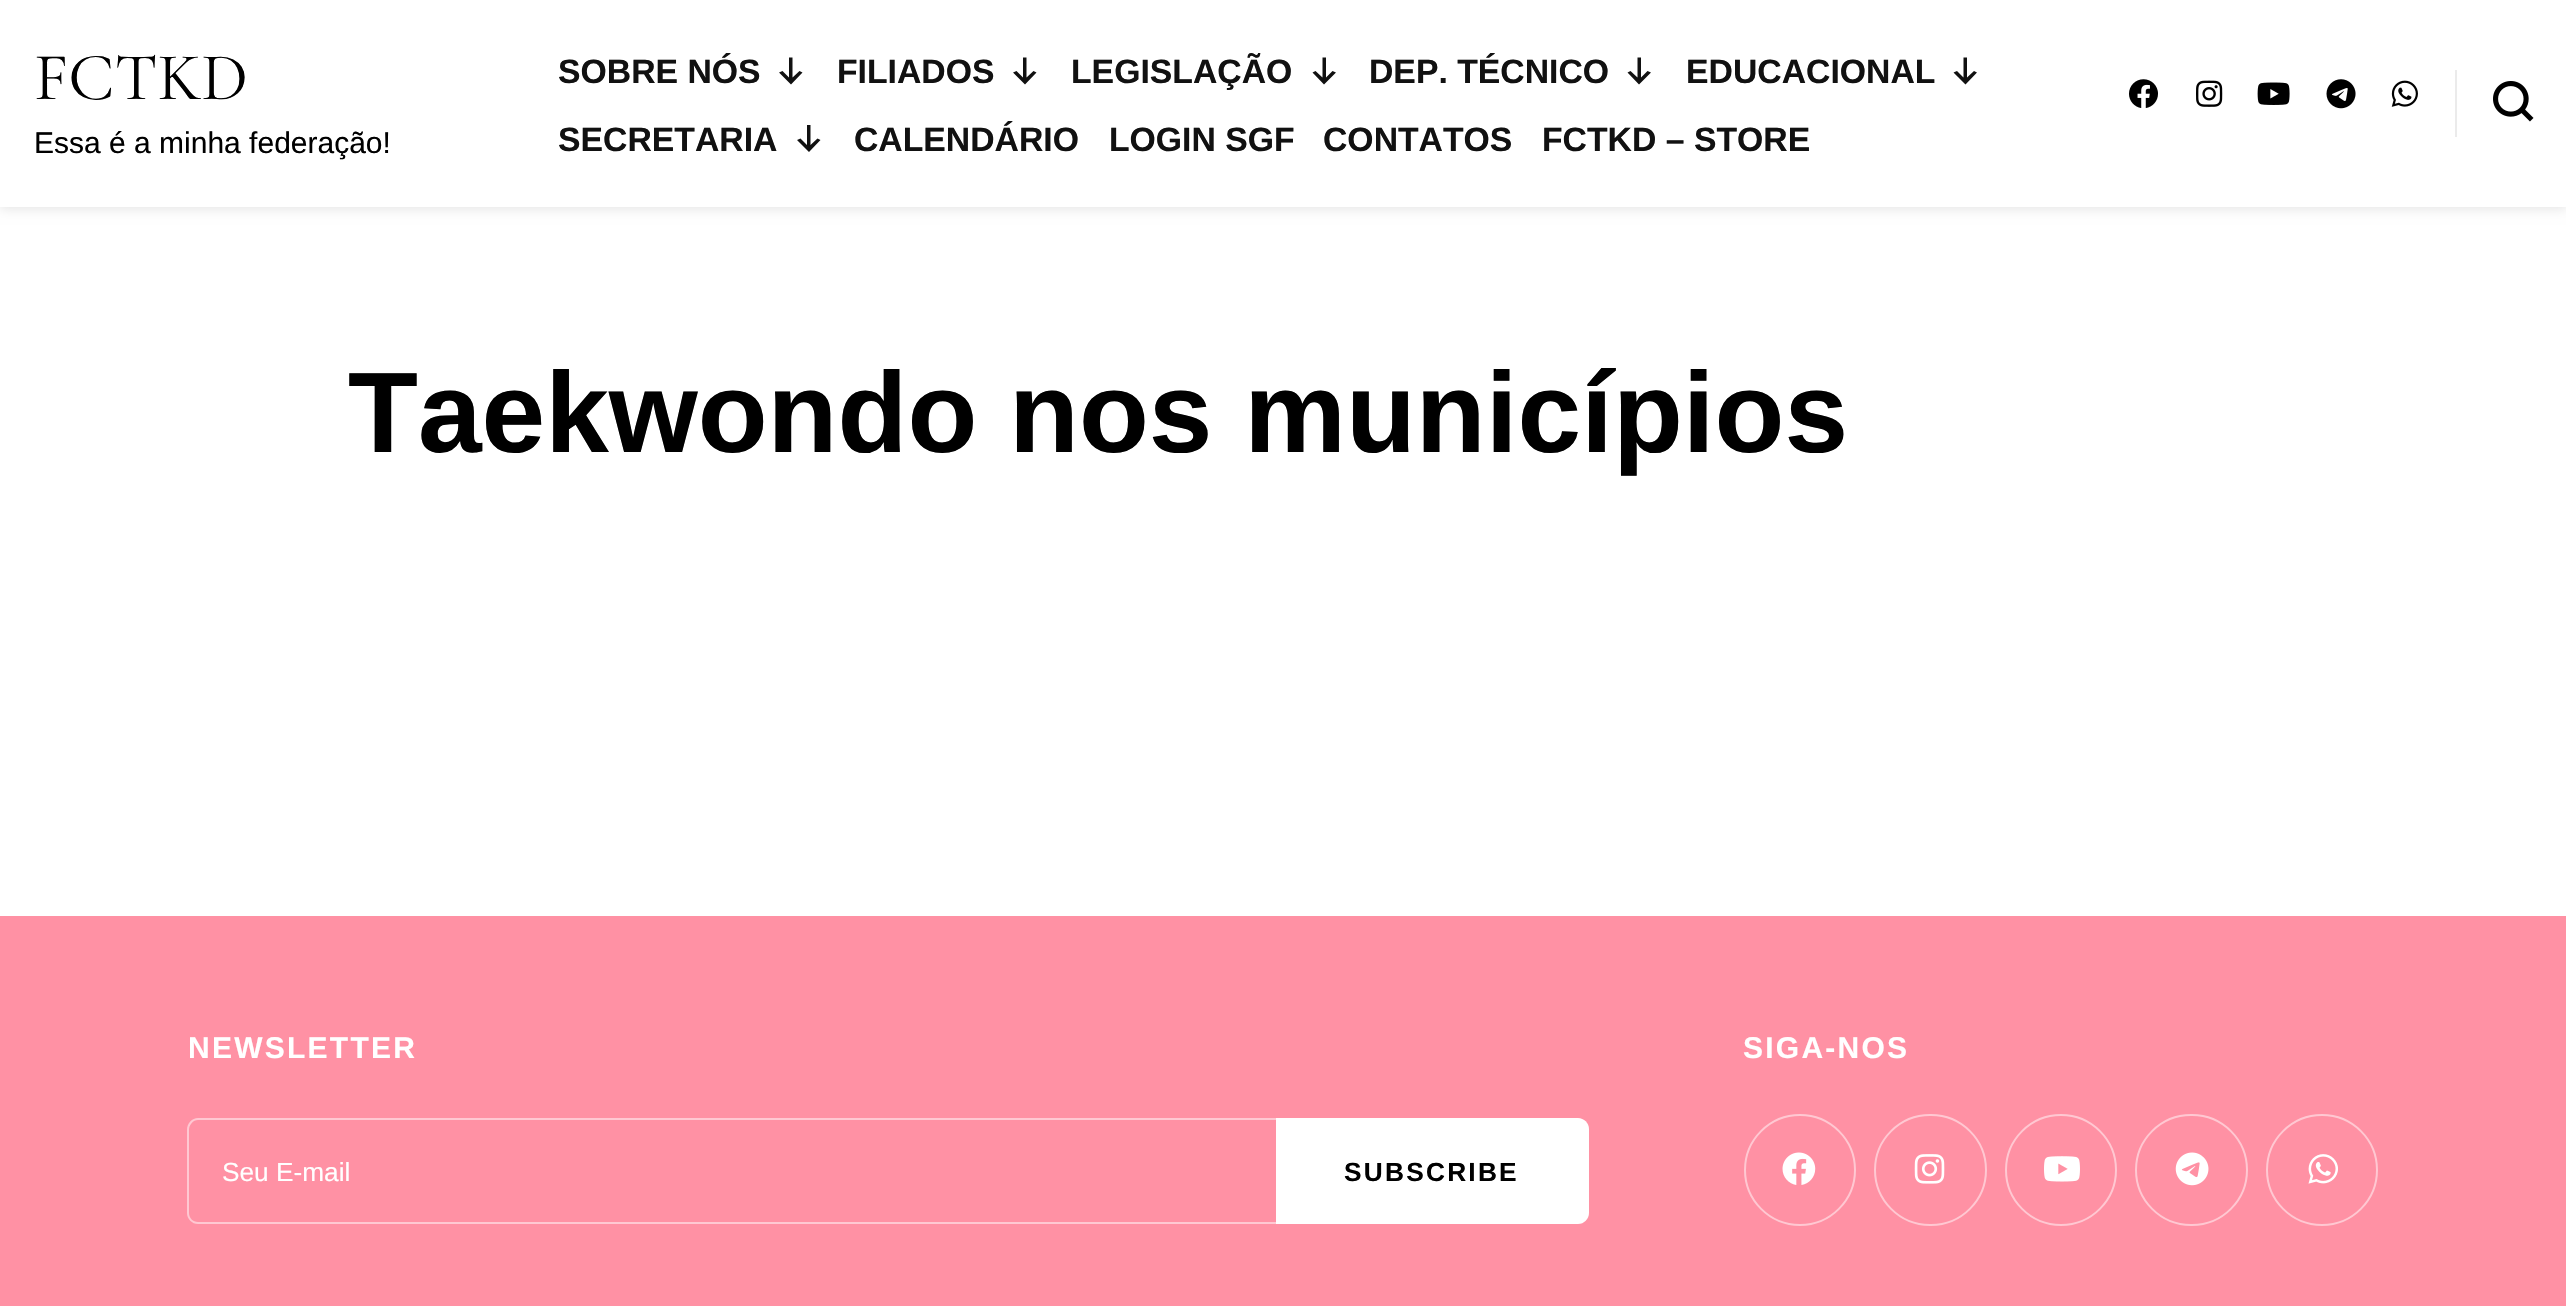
#include "include/core/SkBlurTypes.h"
#include "include/core/SkCanvas.h"
#include "include/core/SkData.h"
#include "include/core/SkFont.h"
#include "include/core/SkFontMgr.h"
#include "include/core/SkImage.h"
#include "include/core/SkMaskFilter.h"
#include "include/core/SkPaint.h"
#include "include/core/SkPathBuilder.h"
#include "include/core/SkTextBlob.h"
#include "include/effects/SkDashPathEffect.h"
#include "include/effects/SkGradientShader.h"
#include "include/utils/SkParsePath.h"

extern sk_sp<SkFontMgr> fontMgr;

void draw(SkCanvas* canvas) {
    SkPaint p;
    p.setAntiAlias(true);
    auto font = [&](const char* family, int weight, float size, bool italic = false) {
        SkFontStyle style(weight, SkFontStyle::kNormal_Width,
            italic ? SkFontStyle::kItalic_Slant : SkFontStyle::kUpright_Slant);
        SkFont result(fontMgr->matchFamilyStyle(family, style), size);
        result.setSubpixel(true);
        return result;
    };
    auto drawTracked = [&](const char* s, float x, float y, const SkFont& font, const SkPaint& ink, float letter, float word) {
        std::vector<SkGlyphID> glyphs(font.countText(s, strlen(s), SkTextEncoding::kUTF8));
        std::vector<float> xs(glyphs.size());
        font.textToGlyphs(s, strlen(s), SkTextEncoding::kUTF8, glyphs);
        font.getXPos(glyphs, xs, x);
        float extra = 0;
        for (size_t i = 0; i < glyphs.size(); i++) {
            xs[i] += extra;
            extra += letter + word * (glyphs[i] == font.unicharToGlyph(' '));
        }
        canvas->drawTextBlob(SkTextBlob::MakeFromPosHGlyphs(glyphs, xs, y, font), 0, 0, ink);
    };
    auto drawPhoto = [&](const char* path, float l, float t, float r, float b) {
        auto image = SkImages::DeferredFromEncodedData(SkData::MakeFromFileName(path));
        canvas->drawImageRect(image, SkRect::MakeLTRB(l, t, r, b), SkSamplingOptions());
    };
    canvas->clear(0xFFFFFFFF);
    p.setColor(0x1A000000);
    p.setMaskFilter(SkMaskFilter::MakeBlur(kNormal_SkBlurStyle, 5.5f));
    canvas->drawRect(SkRect::MakeLTRB(0, 2, 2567, 209), p);
    p.setMaskFilter(nullptr);
    p.setColor(0xFFFFFFFF);
    canvas->drawRect(SkRect::MakeLTRB(0, 0, 2566, 207), p);
    auto font1 = font("Cormorant Garamond", 300, 67.5f);
    p.setColor(0xFF000000);
    canvas->drawString("FCTKD", 34, 99, font1, p);
    auto font2 = font("Liberation Sans", 400, 30);
    canvas->drawString("Essa é a minha federação!", 34, 153, font2, p);
    auto font3 = font("Liberation Sans", 700, 33.75f);
    p.setColor(0xFF111111);
    canvas->drawString("SOBRE NÓS", 558, 83, font3, p);
    canvas->drawPath(SkPathBuilder().moveTo(789, 57.5f).lineTo(792.5f, 57.5f).lineTo(792.5f, 77.5f).lineTo(799.5f, 71).lineTo(802.5f, 72.5f).lineTo(791, 84.5f).lineTo(779, 72.5f).lineTo(782.5f, 71).lineTo(789, 77.5f).close().detach(), p);
    canvas->drawString("FILIADOS", 837, 83, font3, p);
    canvas->drawPath(SkPathBuilder().moveTo(1023, 57.5f).lineTo(1026.5f, 57.5f).lineTo(1026.5f, 77.5f).lineTo(1033.5f, 71).lineTo(1036.5f, 72.5f).lineTo(1025, 84.5f).lineTo(1013, 72.5f).lineTo(1016.5f, 71).lineTo(1023, 77.5f).close().detach(), p);
    canvas->drawString("LEGISLAÇÃO", 1071, 83, font3, p);
    canvas->drawPath(SkPathBuilder().moveTo(1322.5f, 57.5f).lineTo(1326, 57.5f).lineTo(1326, 77.5f).lineTo(1332.5f, 71).lineTo(1336, 72.5f).lineTo(1324, 84.5f).lineTo(1312.5f, 72.5f).lineTo(1315.5f, 71).lineTo(1322.5f, 77.5f).close().detach(), p);
    canvas->drawString("DEP. TÉCNICO", 1369, 83, font3, p);
    canvas->drawPath(SkPathBuilder().moveTo(1637.5f, 57.5f).lineTo(1641, 57.5f).lineTo(1641, 77.5f).lineTo(1647.5f, 71).lineTo(1651, 72.5f).lineTo(1639, 84.5f).lineTo(1627.5f, 72.5f).lineTo(1630.5f, 71).lineTo(1637.5f, 77.5f).close().detach(), p);
    canvas->drawString("EDUCACIONAL", 1686, 83, font3, p);
    canvas->drawPath(SkPathBuilder().moveTo(1963.5f, 57.5f).lineTo(1967, 57.5f).lineTo(1967, 77.5f).lineTo(1974, 71).lineTo(1977, 72.5f).lineTo(1965.5f, 84.5f).lineTo(1953.5f, 72.5f).lineTo(1957, 71).lineTo(1963.5f, 77.5f).close().detach(), p);
    canvas->drawString("SECRETARIA", 558, 151, font3, p);
    canvas->drawPath(SkPathBuilder().moveTo(807, 125).lineTo(810.5f, 125).lineTo(810.5f, 145).lineTo(817.5f, 138.5f).lineTo(820.5f, 140).lineTo(809, 152).lineTo(797, 140).lineTo(800.5f, 138.5f).lineTo(807, 145).close().detach(), p);
    {
        const struct { const char* s; float x, y; } items[] = {
            {"CALENDÁRIO", 854, 151},
            {"LOGIN SGF", 1109, 151},
            {"CONTATOS", 1323, 151},
            {"FCTKD – STORE", 1542, 151},
        };
        for (auto [s, x, y] : items) {
            canvas->drawString(s, x, y, font3, p);
        }
    }
    drawPhoto("media/1.png", 2129, 79, 2158, 108);
    drawPhoto("media/2.png", 2196, 80, 2223, 107);
    drawPhoto("media/3.png", 2257, 82, 2290, 105);
    drawPhoto("media/4.png", 2326, 79, 2356, 109);
    drawPhoto("media/5.png", 2391, 80, 2418, 107);
    p.setColor(0xFFEBEBEB);
    canvas->drawRect(SkRect::MakeLTRB(2455, 70, 2457, 137), p);
    drawPhoto("media/6.png", 2493, 81, 2534, 122);
    auto font4 = font("Liberation Sans", 700, 114.4f);
    p.setColor(0xFF000000);
    canvas->drawString("Taekwondo nos municípios", 348, 452, font4, p);
    p.setColor(0xFFFF91A4);
    canvas->drawRect(SkRect::MakeLTRB(0, 916, 2566, 1306), p);
    auto font5 = font("Liberation Sans", 700, 30);
    p.setColor(0xFFFFFFFF);
    drawTracked("NEWSLETTER", 188, 1058, font5, p, 2.25f, 0);
    p.setColor(0xFFFFC8D2);
    canvas->drawPath(SkPathBuilder(SkPathFillType::kEvenOdd).moveTo(198, 1118).lineTo(1276, 1118).lineTo(1276, 1224).lineTo(198, 1224).cubicTo(192, 1224, 187, 1219, 187, 1213).lineTo(187, 1130).cubicTo(187, 1123, 192, 1118, 198, 1118).close().moveTo(198, 1120).lineTo(1276, 1120).lineTo(1276, 1222).lineTo(198, 1222).cubicTo(193, 1222, 189, 1218, 189, 1213).lineTo(189, 1130).cubicTo(189, 1125, 193, 1120, 198, 1120).close().detach(), p);
    auto font6 = font("Liberation Sans", 400, 26.25f);
    p.setColor(0xFFFFFFFF);
    canvas->drawString("Seu E-mail", 222, 1181, font6, p);
    canvas->drawPath(SkPathBuilder().moveTo(1276, 1118).lineTo(1578, 1118).cubicTo(1584, 1118, 1589, 1123, 1589, 1129).lineTo(1589, 1213).cubicTo(1589, 1219, 1584, 1224, 1578, 1224).lineTo(1276, 1224).close().detach(), p);
    auto font7 = font("Liberation Sans", 700, 26.25f);
    p.setColor(0xFF000000);
    drawTracked("SUBSCRIBE", 1344, 1181, font7, p, 2.25f, 0);
    p.setColor(0xFFFFFFFF);
    drawTracked("SIGA-NOS", 1743, 1058, font5, p, 2.25f, 0);
    p.setStyle(SkPaint::kStroke_Style);
    p.setStrokeWidth(2);
    p.setColor(0xFFFFC8D2);
    canvas->drawCircle(1800, 1170, 55, p);
    drawPhoto("media/7.png", 1782, 1152, 1816, 1185);
    canvas->drawRoundRect(SkRect::MakeLTRB(1875, 1115, 1986, 1225), 55, 55, p);
    drawPhoto("media/8.png", 1914, 1154, 1945, 1184);
    canvas->drawCircle(2061, 1170, 55, p);
    drawPhoto("media/9.png", 2044, 1156, 2080, 1182);
    canvas->drawRoundRect(SkRect::MakeLTRB(2136, 1115, 2247, 1225), 55, 55, p);
    drawPhoto("media/10.png", 2175, 1152, 2209, 1186);
    canvas->drawCircle(2322, 1170, 55, p);
    drawPhoto("media/11.png", 2308, 1154, 2338, 1184);
}
